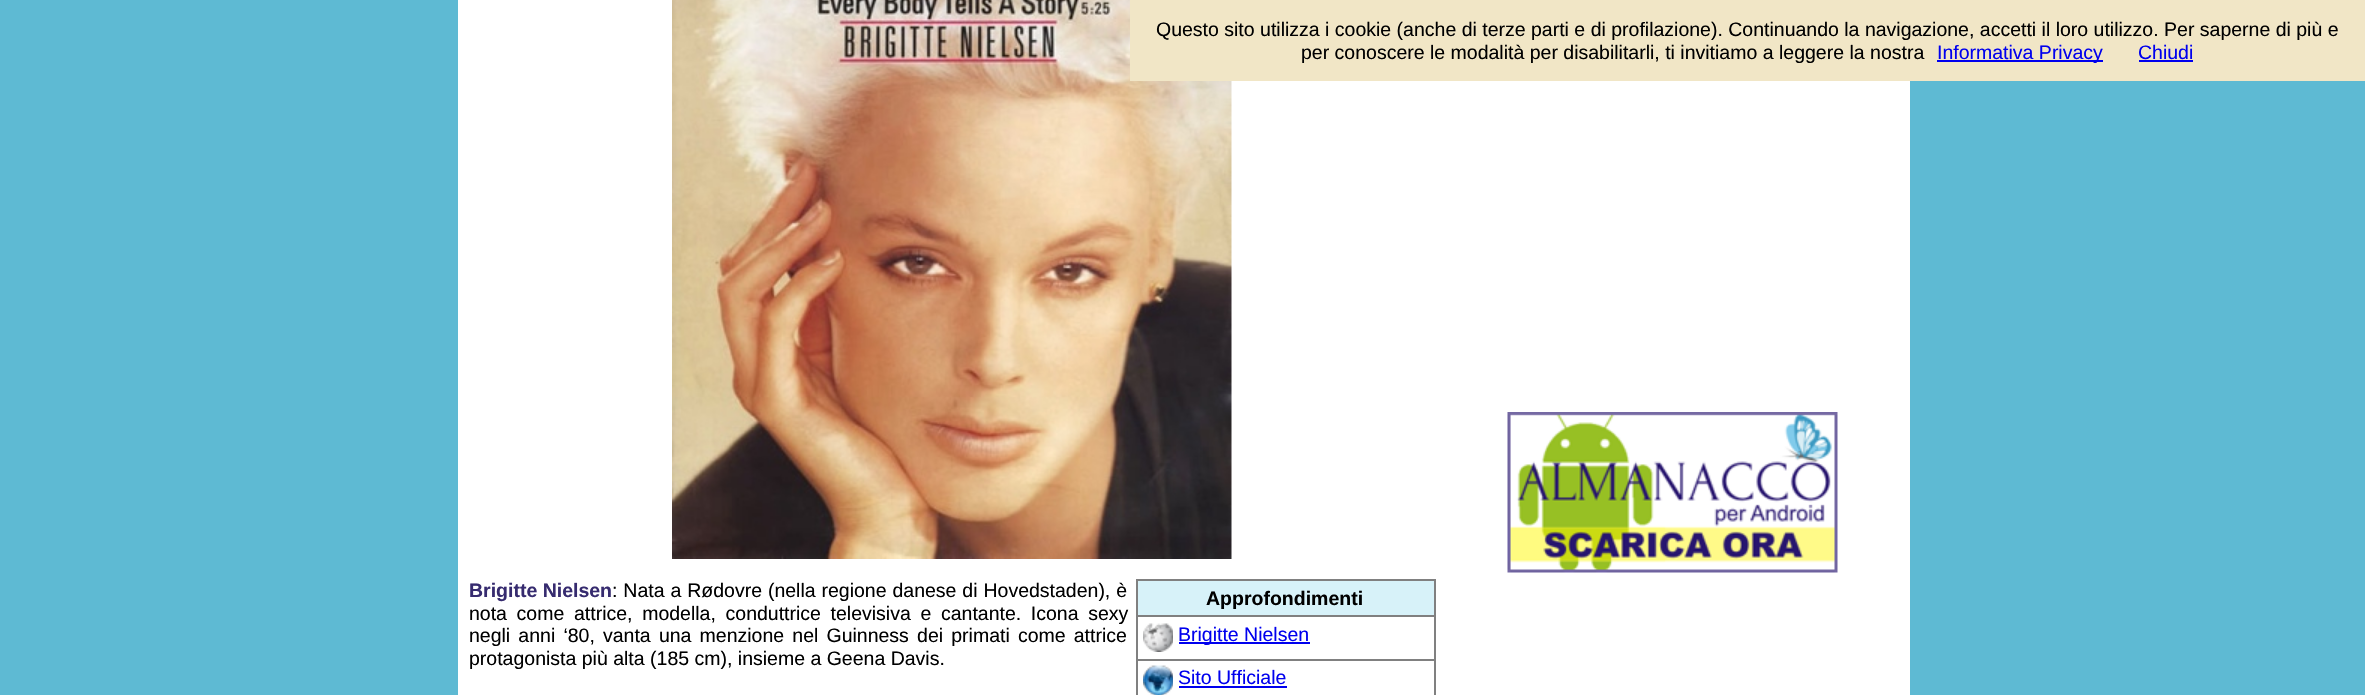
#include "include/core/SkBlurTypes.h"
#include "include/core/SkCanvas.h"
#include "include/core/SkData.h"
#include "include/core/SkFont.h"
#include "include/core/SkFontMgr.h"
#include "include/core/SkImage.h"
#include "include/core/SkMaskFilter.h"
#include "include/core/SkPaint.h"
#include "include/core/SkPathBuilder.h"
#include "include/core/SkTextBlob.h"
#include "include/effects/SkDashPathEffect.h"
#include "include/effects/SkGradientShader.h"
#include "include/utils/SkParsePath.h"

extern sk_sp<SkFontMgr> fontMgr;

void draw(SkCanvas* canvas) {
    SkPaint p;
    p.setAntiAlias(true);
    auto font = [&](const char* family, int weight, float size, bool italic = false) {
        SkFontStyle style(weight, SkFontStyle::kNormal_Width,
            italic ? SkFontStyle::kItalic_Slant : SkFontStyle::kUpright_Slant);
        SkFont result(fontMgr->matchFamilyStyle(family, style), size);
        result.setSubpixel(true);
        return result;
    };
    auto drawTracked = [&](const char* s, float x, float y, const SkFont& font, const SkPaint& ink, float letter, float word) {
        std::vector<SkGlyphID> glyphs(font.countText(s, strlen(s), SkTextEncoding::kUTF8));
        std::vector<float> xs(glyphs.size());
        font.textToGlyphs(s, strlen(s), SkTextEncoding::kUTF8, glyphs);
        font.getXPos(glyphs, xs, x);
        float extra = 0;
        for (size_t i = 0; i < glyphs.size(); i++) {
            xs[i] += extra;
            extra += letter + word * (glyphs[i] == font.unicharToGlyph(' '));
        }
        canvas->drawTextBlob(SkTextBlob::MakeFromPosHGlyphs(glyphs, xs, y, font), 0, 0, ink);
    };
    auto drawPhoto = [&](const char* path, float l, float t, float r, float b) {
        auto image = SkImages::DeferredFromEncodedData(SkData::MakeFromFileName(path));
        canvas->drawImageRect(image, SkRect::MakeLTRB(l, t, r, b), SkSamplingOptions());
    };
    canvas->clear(0xFF5EBAD3);
    p.setColor(0xFFFFFFFF);
    canvas->drawRect(SkRect::MakeLTRB(458, 0, 1910, 695), p);
    drawPhoto("media/2.png", 672, 0, 1232, 559);
    p.setColor(0xFFF1E6C6);
    canvas->drawRect(SkRect::MakeLTRB(1130, 0, 2365, 81), p);
    auto font1 = font("Liberation Sans", 400, 19.5f);
    p.setColor(0xFF000000);
    canvas->drawString("Questo sito utilizza i cookie (anche di terze parti e di profilazione). Continuando la navigazione, accetti il loro utilizzo. Per saperne di più e", 1156, 36, font1, p);
    canvas->drawString("per conoscere le modalità per disabilitarli, ti invitiamo a leggere la nostra", 1301, 59, font1, p);
    p.setColor(0xFF0000EE);
    canvas->drawRect(SkRect::MakeLTRB(1937, 60, 2103, 62), p);
    canvas->drawString("Informativa Privacy", 1937, 59, font1, p);
    canvas->drawString("Chiudi", 2138, 59, font1, p);
    canvas->drawRect(SkRect::MakeLTRB(2139, 60, 2193, 62), p);
    drawPhoto("media/1.png", 1507, 412, 1838, 573);
    auto font2 = font("Liberation Sans", 700, 19.5f);
    p.setColor(0xFF362B6F);
    canvas->drawString("Brigitte Nielsen", 469, 597, font2, p);
    p.setColor(0xFF000000);
    drawTracked(": Nata a Rødovre (nella regione danese di Hovedstaden), è", 612, 597, font1, p, 0, 0.5f);
    drawTracked("nota come attrice, modella, conduttrice televisiva e cantante. Icona sexy", 469, 620, font1, p, 0, 4.25f);
    drawTracked("negli anni ‘80, vanta una menzione nel Guinness dei primati come attrice", 469, 642, font1, p, 0, 2.75f);
    canvas->drawString("protagonista più alta (185 cm), insieme a Geena Davis.", 469, 665, font1, p);
    {
        const struct { float l, t, r, b; SkColor color; } items[] = {
            {1136, 579, 1436, 581, 0xFF808080},
            {1434, 579, 1436, 695, 0xFF808080},
            {1136, 579, 1138, 695, 0xFF808080},
            {1138, 581, 1434, 615, 0xFFD7F2F9},
        };
        for (auto [l, t, r, b, color] : items) {
            p.setColor(color);
            canvas->drawRect(SkRect::MakeLTRB(l, t, r, b), p);
        }
    }
    p.setColor(0xFF000000);
    canvas->drawString("Approfondimenti", 1206, 605, font2, p);
    p.setColor(0xFF808080);
    canvas->drawRect(SkRect::MakeLTRB(1136, 615, 1436, 617), p);
    drawPhoto("media/3.png", 1143, 623, 1173, 652);
    p.setColor(0xFF0000EE);
    canvas->drawRect(SkRect::MakeLTRB(1179, 642, 1310, 644), p);
    canvas->drawString("Brigitte Nielsen", 1178, 641, font1, p);
    p.setColor(0xFF808080);
    canvas->drawRect(SkRect::MakeLTRB(1136, 659, 1436, 661), p);
    drawPhoto("media/4.png", 1143, 665, 1173, 695);
    p.setColor(0xFF0000EE);
    canvas->drawString("Sito Ufficiale", 1178, 684, font1, p);
    canvas->drawRect(SkRect::MakeLTRB(1179, 686, 1287, 688), p);
}
